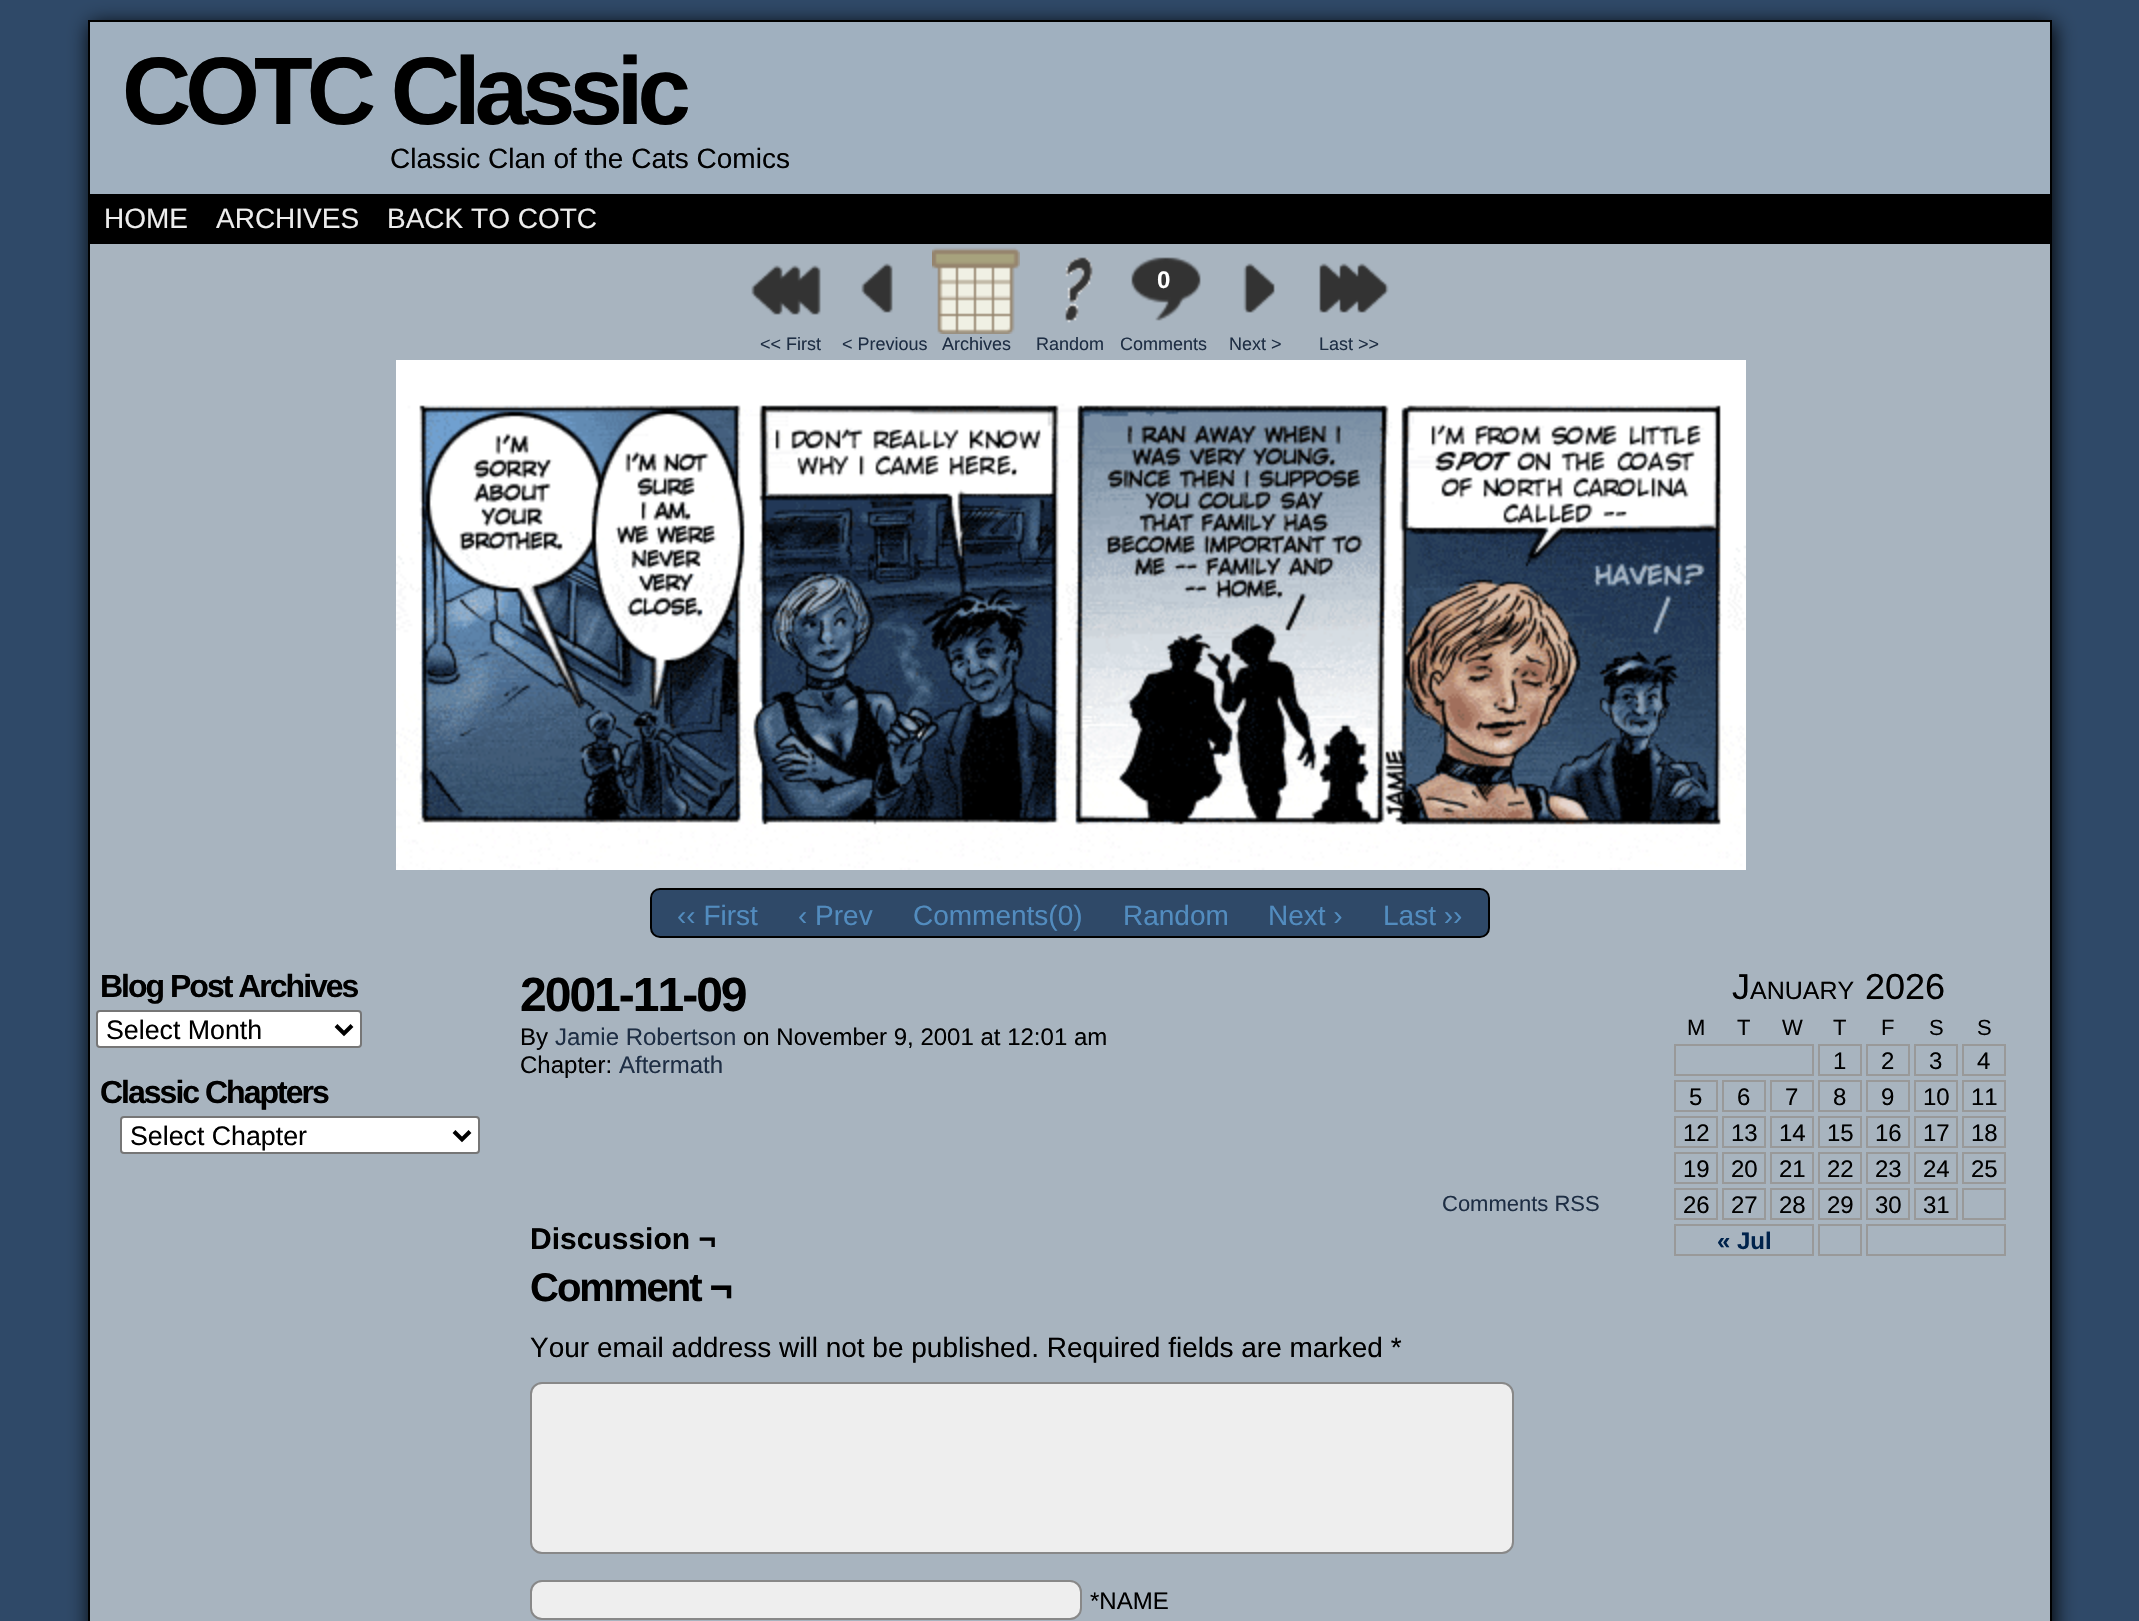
#include "include/core/SkBlurTypes.h"
#include "include/core/SkCanvas.h"
#include "include/core/SkData.h"
#include "include/core/SkFont.h"
#include "include/core/SkFontMgr.h"
#include "include/core/SkImage.h"
#include "include/core/SkMaskFilter.h"
#include "include/core/SkPaint.h"
#include "include/core/SkPathBuilder.h"
#include "include/core/SkTextBlob.h"
#include "include/effects/SkDashPathEffect.h"
#include "include/effects/SkGradientShader.h"
#include "include/utils/SkParsePath.h"

extern sk_sp<SkFontMgr> fontMgr;

void draw(SkCanvas* canvas) {
    SkPaint p;
    p.setAntiAlias(true);
    auto font = [&](const char* family, int weight, float size, bool italic = false) {
        SkFontStyle style(weight, SkFontStyle::kNormal_Width,
            italic ? SkFontStyle::kItalic_Slant : SkFontStyle::kUpright_Slant);
        SkFont result(fontMgr->matchFamilyStyle(family, style), size);
        result.setSubpixel(true);
        return result;
    };
    auto drawTracked = [&](const char* s, float x, float y, const SkFont& font, const SkPaint& ink, float letter, float word) {
        std::vector<SkGlyphID> glyphs(font.countText(s, strlen(s), SkTextEncoding::kUTF8));
        std::vector<float> xs(glyphs.size());
        font.textToGlyphs(s, strlen(s), SkTextEncoding::kUTF8, glyphs);
        font.getXPos(glyphs, xs, x);
        float extra = 0;
        for (size_t i = 0; i < glyphs.size(); i++) {
            xs[i] += extra;
            extra += letter + word * (glyphs[i] == font.unicharToGlyph(' '));
        }
        canvas->drawTextBlob(SkTextBlob::MakeFromPosHGlyphs(glyphs, xs, y, font), 0, 0, ink);
    };
    auto drawPhoto = [&](const char* path, float l, float t, float r, float b) {
        auto image = SkImages::DeferredFromEncodedData(SkData::MakeFromFileName(path));
        canvas->drawImageRect(image, SkRect::MakeLTRB(l, t, r, b), SkSamplingOptions());
    };
    canvas->clear(0xFF2F4968);
    p.setColor(0xFF000000);
    p.setMaskFilter(SkMaskFilter::MakeBlur(kNormal_SkBlurStyle, 10));
    canvas->drawRect(SkRect::MakeLTRB(90, 24, 2054, 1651), p);
    p.setMaskFilter(nullptr);
    p.setColor(0xFFA8B4BF);
    canvas->drawRect(SkRect::MakeLTRB(90, 244, 2050, 1621), p);
    p.setStyle(SkPaint::kStroke_Style);
    p.setStrokeWidth(2);
    p.setColor(0xFF000000);
    canvas->drawRect(SkRect::MakeLTRB(89, 21, 2051, 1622), p);
    p.setStyle(SkPaint::kFill_Style);
    p.setColor(0xFFA0B0BF);
    canvas->drawRect(SkRect::MakeLTRB(90, 22, 2050, 194), p);
    auto font1 = font("Liberation Sans", 700, 96);
    p.setColor(0xFF000000);
    drawTracked("COTC Classic", 122, 124, font1, p, -6, 0);
    auto font2 = font("Liberation Sans", 400, 28);
    canvas->drawString("Classic Clan of the Cats Comics", 390, 168, font2, p);
    canvas->drawRect(SkRect::MakeLTRB(90, 194, 2050, 244), p);
    p.setColor(0xFFEDEDED);
    {
        const struct { const char* s; float x, y; } items[] = {
            {"HOME", 104, 228},
            {"ARCHIVES", 216, 228},
            {"BACK TO COTC", 387, 228},
        };
        for (auto [s, x, y] : items) {
            canvas->drawString(s, x, y, font2, p);
        }
    }
    drawPhoto("media/1.png", 751, 265, 821, 315);
    auto font3 = font("Liberation Sans", 400, 18);
    p.setColor(0xFF1E2E44);
    canvas->drawString("<< First", 760, 350, font3, p);
    drawPhoto("media/2.png", 861, 263, 893, 313);
    canvas->drawString("< Previous", 842, 350, font3, p);
    drawPhoto("media/3.png", 932, 247, 1020, 334);
    canvas->drawString("Archives", 942, 350, font3, p);
    drawPhoto("media/4.png", 1065, 257, 1093, 323);
    canvas->drawString("Random", 1036, 350, font3, p);
    drawPhoto("media/5.png", 1131, 257, 1201, 321);
    auto font4 = font("Liberation Sans", 700, 24);
    p.setColor(0xFFFFFFFF);
    canvas->drawString("0", 1157, 288, font4, p);
    p.setColor(0xFF1E2E44);
    canvas->drawString("Comments", 1120, 350, font3, p);
    drawPhoto("media/6.png", 1243, 263, 1275, 313);
    canvas->drawString("Next >", 1229, 350, font3, p);
    drawPhoto("media/7.png", 1319, 263, 1389, 313);
    canvas->drawString("Last >>", 1319, 350, font3, p);
    drawPhoto("media/8.png", 396, 360, 1746, 870);
    p.setColor(0xFF2F4968);
    canvas->drawRoundRect(SkRect::MakeLTRB(651, 889, 1489, 937), 9, 9, p);
    p.setStyle(SkPaint::kStroke_Style);
    p.setColor(0xFF000000);
    canvas->drawRoundRect(SkRect::MakeLTRB(651, 889, 1489, 937), 9, 9, p);
    p.setStyle(SkPaint::kFill_Style);
    p.setColor(0xFF528CBF);
    {
        const struct { const char* s; float x, y; } items[] = {
            {"‹‹ First", 677, 925},
            {"‹ Prev", 798, 925},
            {"Comments(0)", 913, 925},
            {"Random", 1123, 925},
            {"Next ›", 1268, 925},
            {"Last ››", 1383, 925},
        };
        for (auto [s, x, y] : items) {
            canvas->drawString(s, x, y, font2, p);
        }
    }
    auto font5 = font("Liberation Sans", 700, 32);
    p.setColor(0xFF000000);
    drawTracked("Blog Post Archives", 100, 997, font5, p, -2, 0);
    p.setColor(0xFFFFFFFF);
    canvas->drawRoundRect(SkRect::MakeLTRB(97, 1011, 361, 1047), 3, 3, p);
    p.setStyle(SkPaint::kStroke_Style);
    p.setColor(0xFF767676);
    canvas->drawRoundRect(SkRect::MakeLTRB(97, 1011, 361, 1047), 3, 3, p);
    p.setStrokeWidth(4);
    p.setColor(0xFF000000);
    canvas->drawPath(SkPathBuilder().moveTo(336, 1025.5f).lineTo(344, 1033.5f).lineTo(352, 1025.5f).detach(), p);
    auto font6 = font("Liberation Sans", 400, 26.75f);
    p.setStyle(SkPaint::kFill_Style);
    canvas->drawString("Select Month", 106, 1039, font6, p);
    drawTracked("Classic Chapters", 100, 1103, font5, p, -2, 0);
    p.setColor(0xFFFFFFFF);
    canvas->drawRoundRect(SkRect::MakeLTRB(121, 1117, 479, 1153), 3, 3, p);
    p.setStyle(SkPaint::kStroke_Style);
    p.setStrokeWidth(2);
    p.setColor(0xFF767676);
    canvas->drawRoundRect(SkRect::MakeLTRB(121, 1117, 479, 1153), 3, 3, p);
    p.setStrokeWidth(4);
    p.setColor(0xFF000000);
    canvas->drawPath(SkPathBuilder().moveTo(454, 1131.5f).lineTo(462, 1139.5f).lineTo(470, 1131.5f).detach(), p);
    p.setStyle(SkPaint::kFill_Style);
    canvas->drawString("Select Chapter", 130, 1145, font6, p);
    auto font7 = font("Liberation Sans", 700, 48);
    drawTracked("2001-11-09", 520, 1011, font7, p, -2, 0);
    auto font8 = font("Liberation Sans", 400, 24);
    canvas->drawString("By", 520, 1045, font8, p);
    p.setColor(0xFF1E2E44);
    canvas->drawString("Jamie Robertson", 555, 1045, font8, p);
    p.setColor(0xFF000000);
    canvas->drawString("on November 9, 2001 at 12:01 am", 743, 1045, font8, p);
    canvas->drawString("Chapter:", 520, 1073, font8, p);
    p.setColor(0xFF1E2E44);
    canvas->drawString("Aftermath", 619, 1073, font8, p);
    auto font9 = font("Liberation Sans", 400, 22);
    canvas->drawString("Comments RSS", 1442, 1211, font9, p);
    auto font10 = font("Liberation Sans", 700, 30);
    p.setColor(0xFF000000);
    canvas->drawString("Discussion ¬", 530, 1249, font10, p);
    auto font11 = font("Liberation Sans", 700, 40);
    drawTracked("Comment ¬", 530, 1301, font11, p, -2, 0);
    canvas->drawString("Your email address will not be published. Required fields are marked *", 530, 1357, font2, p);
    p.setColor(0xFFEEEEEE);
    canvas->drawRoundRect(SkRect::MakeLTRB(531, 1383, 1513, 1553), 11, 11, p);
    p.setStyle(SkPaint::kStroke_Style);
    p.setStrokeWidth(2);
    p.setColor(0xFF888888);
    canvas->drawRoundRect(SkRect::MakeLTRB(531, 1383, 1513, 1553), 11, 11, p);
    p.setStyle(SkPaint::kFill_Style);
    p.setColor(0xFFEEEEEE);
    canvas->drawRoundRect(SkRect::MakeLTRB(531, 1581, 1081, 1619), 11, 11, p);
    p.setStyle(SkPaint::kStroke_Style);
    p.setColor(0xFF888888);
    canvas->drawRoundRect(SkRect::MakeLTRB(531, 1581, 1081, 1619), 11, 11, p);
    p.setStyle(SkPaint::kFill_Style);
    p.setColor(0xFF000000);
    canvas->drawString("*NAME", 1090, 1609, font8, p);
    auto font12 = font("Liberation Sans", 400, 36);
    canvas->drawString("J", 1732, 999, font12, p);
    auto font13 = font("Liberation Sans", 400, 25);
    canvas->drawString("ANUARY", 1750, 999, font13, p);
    canvas->drawString("2026", 1865, 999, font12, p);
    {
        const struct { const char* s; float x, y; } items[] = {
            {"M", 1687, 1035},
            {"T", 1737, 1035},
            {"W", 1782, 1035},
            {"T", 1833, 1035},
            {"F", 1881, 1035},
            {"S", 1929, 1035},
            {"S", 1977, 1035},
        };
        for (auto [s, x, y] : items) {
            canvas->drawString(s, x, y, font9, p);
        }
    }
    p.setStyle(SkPaint::kStroke_Style);
    p.setColor(0xFF999999);
    canvas->drawRect(SkRect::MakeLTRB(1675, 1045, 1813, 1075), p);
    canvas->drawRect(SkRect::MakeLTRB(1819, 1045, 1861, 1075), p);
    p.setStyle(SkPaint::kFill_Style);
    p.setColor(0xFF000000);
    canvas->drawString("1", 1833, 1069, font8, p);
    p.setStyle(SkPaint::kStroke_Style);
    p.setColor(0xFF999999);
    canvas->drawRect(SkRect::MakeLTRB(1867, 1045, 1909, 1075), p);
    p.setStyle(SkPaint::kFill_Style);
    p.setColor(0xFF000000);
    canvas->drawString("2", 1881, 1069, font8, p);
    p.setStyle(SkPaint::kStroke_Style);
    p.setColor(0xFF999999);
    canvas->drawRect(SkRect::MakeLTRB(1915, 1045, 1957, 1075), p);
    p.setStyle(SkPaint::kFill_Style);
    p.setColor(0xFF000000);
    canvas->drawString("3", 1929, 1069, font8, p);
    p.setStyle(SkPaint::kStroke_Style);
    p.setColor(0xFF999999);
    canvas->drawRect(SkRect::MakeLTRB(1963, 1045, 2005, 1075), p);
    p.setStyle(SkPaint::kFill_Style);
    p.setColor(0xFF000000);
    canvas->drawString("4", 1977, 1069, font8, p);
    p.setStyle(SkPaint::kStroke_Style);
    p.setColor(0xFF999999);
    canvas->drawRect(SkRect::MakeLTRB(1675, 1081, 1717, 1111), p);
    p.setStyle(SkPaint::kFill_Style);
    p.setColor(0xFF000000);
    canvas->drawString("5", 1689, 1105, font8, p);
    p.setStyle(SkPaint::kStroke_Style);
    p.setColor(0xFF999999);
    canvas->drawRect(SkRect::MakeLTRB(1723, 1081, 1765, 1111), p);
    p.setStyle(SkPaint::kFill_Style);
    p.setColor(0xFF000000);
    canvas->drawString("6", 1737, 1105, font8, p);
    p.setStyle(SkPaint::kStroke_Style);
    p.setColor(0xFF999999);
    canvas->drawRect(SkRect::MakeLTRB(1771, 1081, 1813, 1111), p);
    p.setStyle(SkPaint::kFill_Style);
    p.setColor(0xFF000000);
    canvas->drawString("7", 1785, 1105, font8, p);
    p.setStyle(SkPaint::kStroke_Style);
    p.setColor(0xFF999999);
    canvas->drawRect(SkRect::MakeLTRB(1819, 1081, 1861, 1111), p);
    p.setStyle(SkPaint::kFill_Style);
    p.setColor(0xFF000000);
    canvas->drawString("8", 1833, 1105, font8, p);
    p.setStyle(SkPaint::kStroke_Style);
    p.setColor(0xFF999999);
    canvas->drawRect(SkRect::MakeLTRB(1867, 1081, 1909, 1111), p);
    p.setStyle(SkPaint::kFill_Style);
    p.setColor(0xFF000000);
    canvas->drawString("9", 1881, 1105, font8, p);
    p.setStyle(SkPaint::kStroke_Style);
    p.setColor(0xFF999999);
    canvas->drawRect(SkRect::MakeLTRB(1915, 1081, 1957, 1111), p);
    p.setStyle(SkPaint::kFill_Style);
    p.setColor(0xFF000000);
    canvas->drawString("10", 1923, 1105, font8, p);
    p.setStyle(SkPaint::kStroke_Style);
    p.setColor(0xFF999999);
    canvas->drawRect(SkRect::MakeLTRB(1963, 1081, 2005, 1111), p);
    p.setStyle(SkPaint::kFill_Style);
    p.setColor(0xFF000000);
    canvas->drawString("11", 1971, 1105, font8, p);
    p.setStyle(SkPaint::kStroke_Style);
    p.setColor(0xFF999999);
    canvas->drawRect(SkRect::MakeLTRB(1675, 1117, 1717, 1147), p);
    p.setStyle(SkPaint::kFill_Style);
    p.setColor(0xFF000000);
    canvas->drawString("12", 1683, 1141, font8, p);
    p.setStyle(SkPaint::kStroke_Style);
    p.setColor(0xFF999999);
    canvas->drawRect(SkRect::MakeLTRB(1723, 1117, 1765, 1147), p);
    p.setStyle(SkPaint::kFill_Style);
    p.setColor(0xFF000000);
    canvas->drawString("13", 1731, 1141, font8, p);
    p.setStyle(SkPaint::kStroke_Style);
    p.setColor(0xFF999999);
    canvas->drawRect(SkRect::MakeLTRB(1771, 1117, 1813, 1147), p);
    p.setStyle(SkPaint::kFill_Style);
    p.setColor(0xFF000000);
    canvas->drawString("14", 1779, 1141, font8, p);
    p.setStyle(SkPaint::kStroke_Style);
    p.setColor(0xFF999999);
    canvas->drawRect(SkRect::MakeLTRB(1819, 1117, 1861, 1147), p);
    p.setStyle(SkPaint::kFill_Style);
    p.setColor(0xFF000000);
    canvas->drawString("15", 1827, 1141, font8, p);
    p.setStyle(SkPaint::kStroke_Style);
    p.setColor(0xFF999999);
    canvas->drawRect(SkRect::MakeLTRB(1867, 1117, 1909, 1147), p);
    p.setStyle(SkPaint::kFill_Style);
    p.setColor(0xFF000000);
    canvas->drawString("16", 1875, 1141, font8, p);
    p.setStyle(SkPaint::kStroke_Style);
    p.setColor(0xFF999999);
    canvas->drawRect(SkRect::MakeLTRB(1915, 1117, 1957, 1147), p);
    p.setStyle(SkPaint::kFill_Style);
    p.setColor(0xFF000000);
    canvas->drawString("17", 1923, 1141, font8, p);
    p.setStyle(SkPaint::kStroke_Style);
    p.setColor(0xFF999999);
    canvas->drawRect(SkRect::MakeLTRB(1963, 1117, 2005, 1147), p);
    p.setStyle(SkPaint::kFill_Style);
    p.setColor(0xFF000000);
    canvas->drawString("18", 1971, 1141, font8, p);
    p.setStyle(SkPaint::kStroke_Style);
    p.setColor(0xFF999999);
    canvas->drawRect(SkRect::MakeLTRB(1675, 1153, 1717, 1183), p);
    p.setStyle(SkPaint::kFill_Style);
    p.setColor(0xFF000000);
    canvas->drawString("19", 1683, 1177, font8, p);
    p.setStyle(SkPaint::kStroke_Style);
    p.setColor(0xFF999999);
    canvas->drawRect(SkRect::MakeLTRB(1723, 1153, 1765, 1183), p);
    p.setStyle(SkPaint::kFill_Style);
    p.setColor(0xFF000000);
    canvas->drawString("20", 1731, 1177, font8, p);
    p.setStyle(SkPaint::kStroke_Style);
    p.setColor(0xFF999999);
    canvas->drawRect(SkRect::MakeLTRB(1771, 1153, 1813, 1183), p);
    p.setStyle(SkPaint::kFill_Style);
    p.setColor(0xFF000000);
    canvas->drawString("21", 1779, 1177, font8, p);
    p.setStyle(SkPaint::kStroke_Style);
    p.setColor(0xFF999999);
    canvas->drawRect(SkRect::MakeLTRB(1819, 1153, 1861, 1183), p);
    p.setStyle(SkPaint::kFill_Style);
    p.setColor(0xFF000000);
    canvas->drawString("22", 1827, 1177, font8, p);
    p.setStyle(SkPaint::kStroke_Style);
    p.setColor(0xFF999999);
    canvas->drawRect(SkRect::MakeLTRB(1867, 1153, 1909, 1183), p);
    p.setStyle(SkPaint::kFill_Style);
    p.setColor(0xFF000000);
    canvas->drawString("23", 1875, 1177, font8, p);
    p.setStyle(SkPaint::kStroke_Style);
    p.setColor(0xFF999999);
    canvas->drawRect(SkRect::MakeLTRB(1915, 1153, 1957, 1183), p);
    p.setStyle(SkPaint::kFill_Style);
    p.setColor(0xFF000000);
    canvas->drawString("24", 1923, 1177, font8, p);
    p.setStyle(SkPaint::kStroke_Style);
    p.setColor(0xFF999999);
    canvas->drawRect(SkRect::MakeLTRB(1963, 1153, 2005, 1183), p);
    p.setStyle(SkPaint::kFill_Style);
    p.setColor(0xFF000000);
    canvas->drawString("25", 1971, 1177, font8, p);
    p.setStyle(SkPaint::kStroke_Style);
    p.setColor(0xFF999999);
    canvas->drawRect(SkRect::MakeLTRB(1675, 1189, 1717, 1219), p);
    p.setStyle(SkPaint::kFill_Style);
    p.setColor(0xFF000000);
    canvas->drawString("26", 1683, 1213, font8, p);
    p.setStyle(SkPaint::kStroke_Style);
    p.setColor(0xFF999999);
    canvas->drawRect(SkRect::MakeLTRB(1723, 1189, 1765, 1219), p);
    p.setStyle(SkPaint::kFill_Style);
    p.setColor(0xFF000000);
    canvas->drawString("27", 1731, 1213, font8, p);
    p.setStyle(SkPaint::kStroke_Style);
    p.setColor(0xFF999999);
    canvas->drawRect(SkRect::MakeLTRB(1771, 1189, 1813, 1219), p);
    p.setStyle(SkPaint::kFill_Style);
    p.setColor(0xFF000000);
    canvas->drawString("28", 1779, 1213, font8, p);
    p.setStyle(SkPaint::kStroke_Style);
    p.setColor(0xFF999999);
    canvas->drawRect(SkRect::MakeLTRB(1819, 1189, 1861, 1219), p);
    p.setStyle(SkPaint::kFill_Style);
    p.setColor(0xFF000000);
    canvas->drawString("29", 1827, 1213, font8, p);
    p.setStyle(SkPaint::kStroke_Style);
    p.setColor(0xFF999999);
    canvas->drawRect(SkRect::MakeLTRB(1867, 1189, 1909, 1219), p);
    p.setStyle(SkPaint::kFill_Style);
    p.setColor(0xFF000000);
    canvas->drawString("30", 1875, 1213, font8, p);
    p.setStyle(SkPaint::kStroke_Style);
    p.setColor(0xFF999999);
    canvas->drawRect(SkRect::MakeLTRB(1915, 1189, 1957, 1219), p);
    p.setStyle(SkPaint::kFill_Style);
    p.setColor(0xFF000000);
    canvas->drawString("31", 1923, 1213, font8, p);
    p.setStyle(SkPaint::kStroke_Style);
    p.setColor(0xFF999999);
    canvas->drawRect(SkRect::MakeLTRB(1963, 1189, 2005, 1219), p);
    canvas->drawRect(SkRect::MakeLTRB(1675, 1225, 1813, 1255), p);
    p.setStyle(SkPaint::kFill_Style);
    p.setColor(0xFF00234C);
    canvas->drawString("« Jul", 1717, 1249, font4, p);
    p.setStyle(SkPaint::kStroke_Style);
    p.setColor(0xFF999999);
    canvas->drawRect(SkRect::MakeLTRB(1819, 1225, 1861, 1255), p);
    canvas->drawRect(SkRect::MakeLTRB(1867, 1225, 2005, 1255), p);
}
